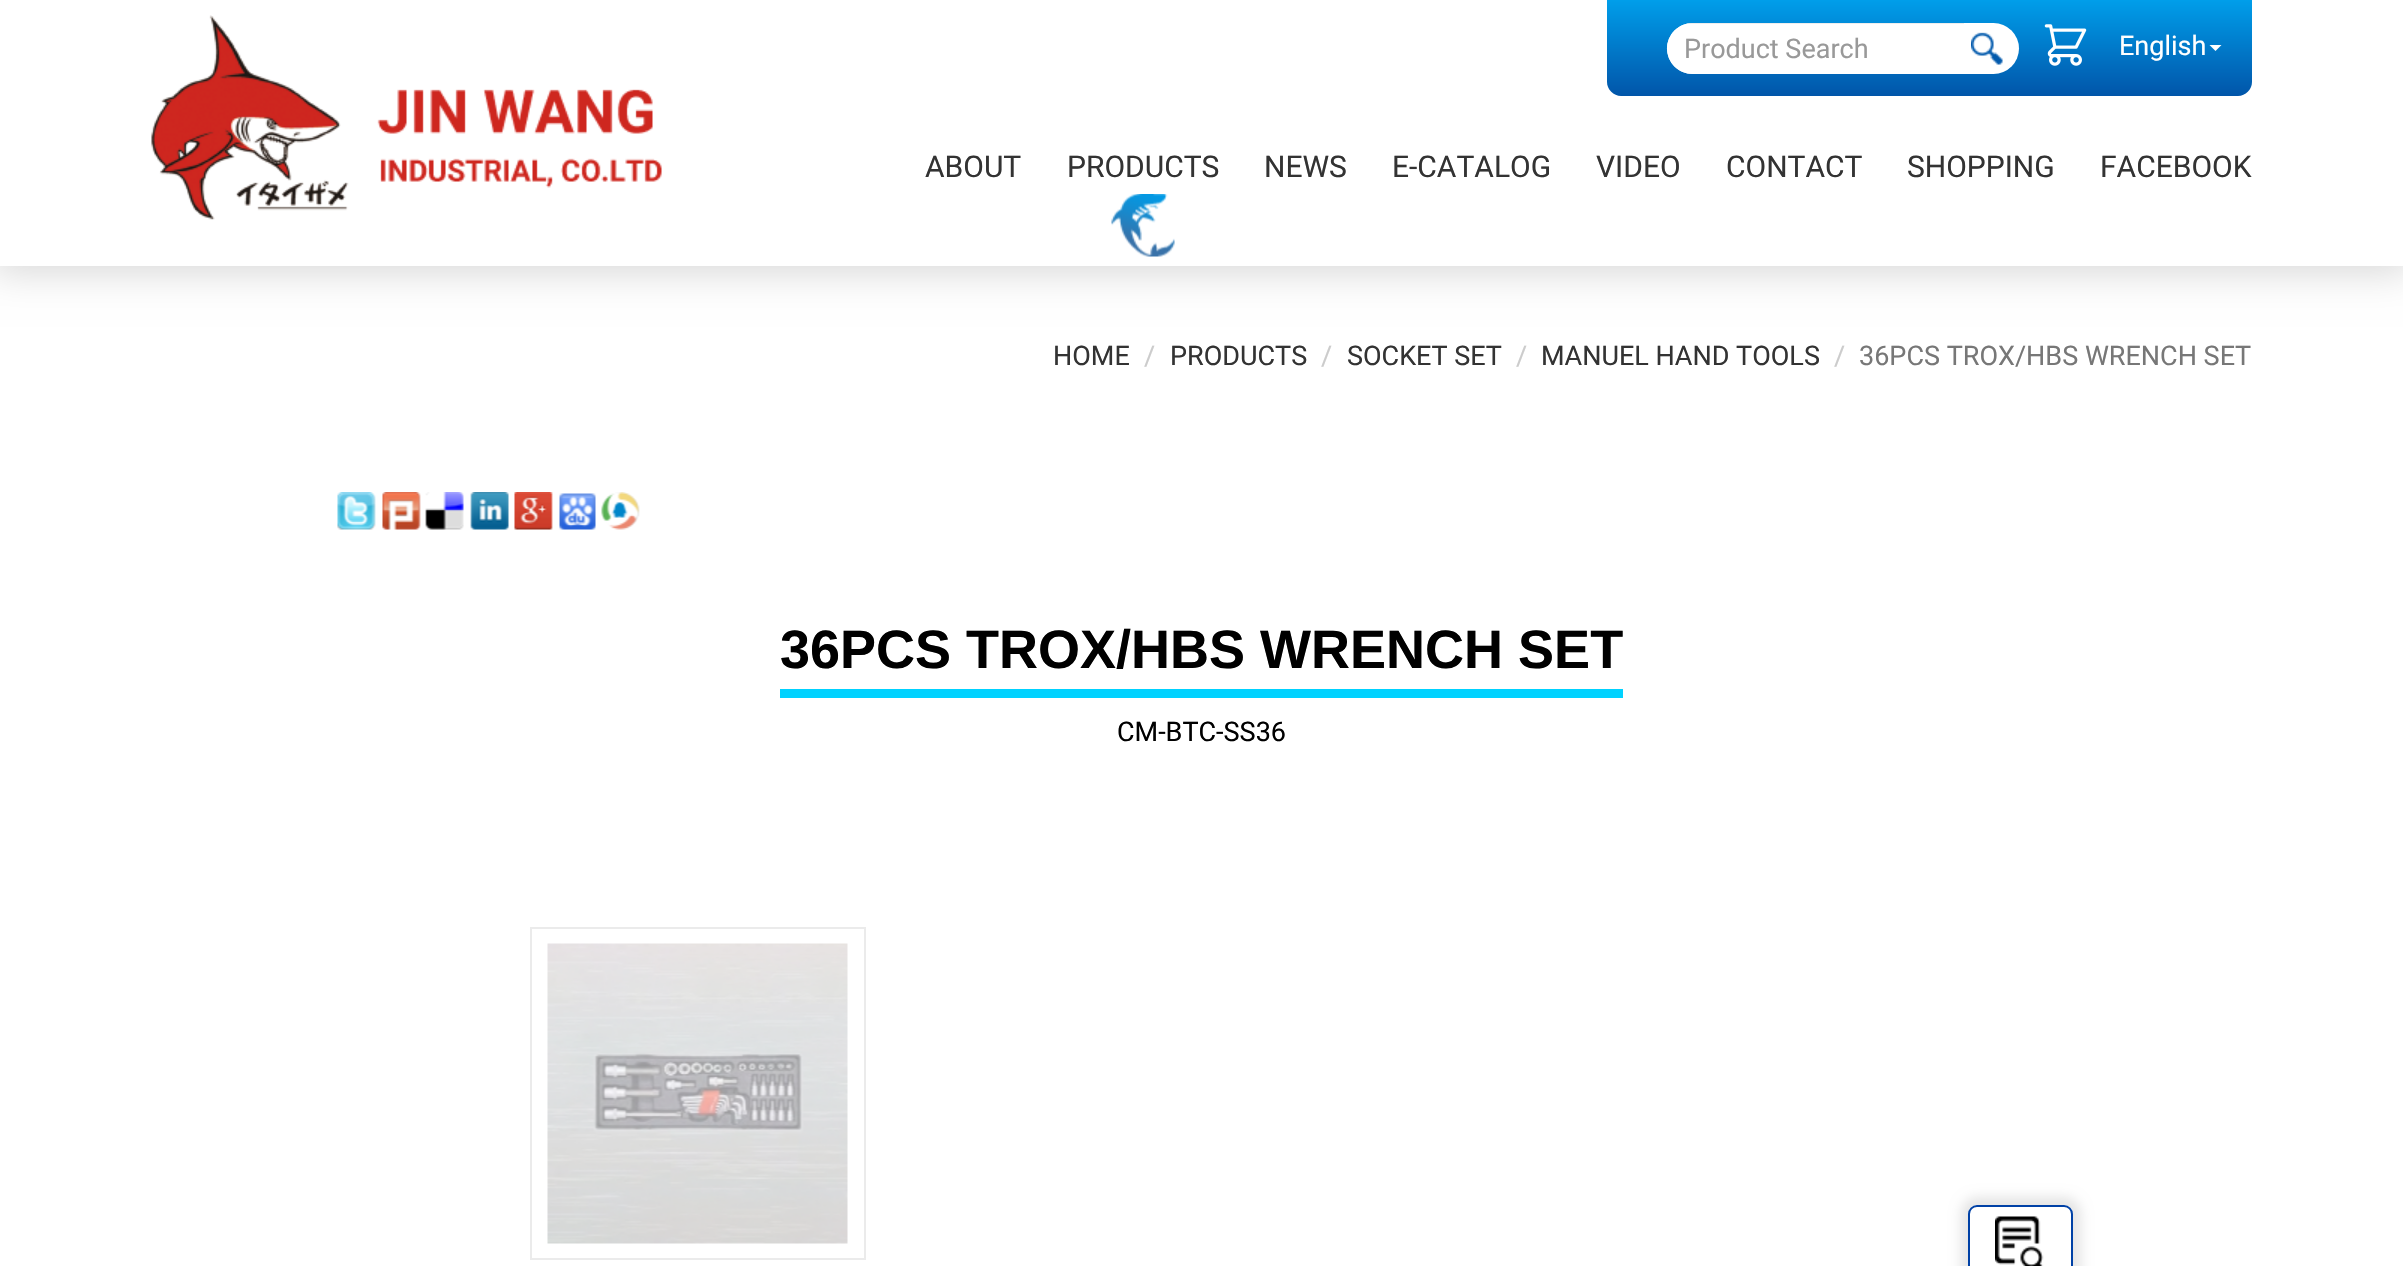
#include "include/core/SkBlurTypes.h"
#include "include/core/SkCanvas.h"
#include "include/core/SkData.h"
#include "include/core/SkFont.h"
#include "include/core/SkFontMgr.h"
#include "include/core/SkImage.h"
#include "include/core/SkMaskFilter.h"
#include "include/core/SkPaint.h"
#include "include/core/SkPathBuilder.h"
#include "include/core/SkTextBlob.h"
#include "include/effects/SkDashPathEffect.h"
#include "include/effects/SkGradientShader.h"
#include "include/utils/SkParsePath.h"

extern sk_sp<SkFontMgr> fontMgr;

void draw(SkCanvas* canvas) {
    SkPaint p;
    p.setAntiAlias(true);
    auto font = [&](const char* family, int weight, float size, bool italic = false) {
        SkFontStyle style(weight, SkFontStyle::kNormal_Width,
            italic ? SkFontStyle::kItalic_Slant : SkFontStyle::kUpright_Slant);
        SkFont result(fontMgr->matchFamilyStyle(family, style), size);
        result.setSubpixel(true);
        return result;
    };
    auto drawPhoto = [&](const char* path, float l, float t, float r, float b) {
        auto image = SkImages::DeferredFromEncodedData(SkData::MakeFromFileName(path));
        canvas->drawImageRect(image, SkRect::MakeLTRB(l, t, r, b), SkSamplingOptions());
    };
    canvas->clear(0xFFFFFFFF);
    p.setColor(0x26000000);
    p.setMaskFilter(SkMaskFilter::MakeBlur(kNormal_SkBlurStyle, 18));
    canvas->drawRect(SkRect::MakeLTRB(-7, -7, 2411, 273), p);
    p.setMaskFilter(nullptr);
    p.setColor(0xFFFFFFFF);
    canvas->drawRect(SkRect::MakeLTRB(0, 0, 2403, 266), p);
    drawPhoto("media/1.png", 151, 15, 662, 220);
    {
        const SkColor colors[] = {0xFF009EEA, 0xFF0155A9};
        const float stops[] = {0, 1};
        const SkPoint ends[] = {{1929, 0}, {1929, 96}};
        p.setShader(SkGradientShader::MakeLinear(ends, colors, stops, 2, SkTileMode::kClamp));
        p.setAlpha(255);
    }
    canvas->drawPath(SkPathBuilder().moveTo(1607, 0).lineTo(2252, 0).lineTo(2252, 82).cubicTo(2252, 89.5f, 2245.5f, 96, 2238, 96).lineTo(1621, 96).cubicTo(1613.5f, 96, 1607, 89.5f, 1607, 82).close().detach(), p);
    p.setShader(nullptr);
    p.setColor(0xFFFFFFFF);
    canvas->drawRoundRect(SkRect::MakeLTRB(1667, 23, 2019, 74), 25.5f, 25.5f, p);
    canvas->drawPath(SkPathBuilder().moveTo(1692.5f, 23).lineTo(1964, 23).lineTo(1964, 74).lineTo(1692.5f, 74).cubicTo(1678.5f, 74, 1667, 62.5f, 1667, 48.5f).cubicTo(1667, 34.5f, 1678.5f, 23, 1692.5f, 23).close().detach(), p);
    p.setColor(0x12000000);
    canvas->drawPath(SkPathBuilder().moveTo(1692, 23).lineTo(1685, 24).lineTo(1964, 24).lineTo(1964, 23).close().detach(), p);
    auto font1 = font("Roboto", 400, 27);
    p.setColor(0xFF999999);
    canvas->drawString("Product Search", 1684, 58, font1, p);
    drawPhoto("media/2.png", 1971, 32, 2003, 65);
    drawPhoto("media/3.png", 2044, 24, 2087, 66);
    p.setColor(0xFFFFFFFF);
    canvas->drawString("English", 2119, 55, font1, p);
    canvas->drawPath(SkPathBuilder().moveTo(2209.5f, 45).lineTo(2221.5f, 45).lineTo(2215.5f, 51).close().detach(), p);
    auto font2 = font("Roboto", 400, 30);
    p.setColor(0xFF333333);
    canvas->drawString("ABOUT", 925, 177, font2, p);
    canvas->drawString("PRODUCTS", 1067, 177, font2, p);
    drawPhoto("media/4.png", 1111, 194, 1175, 257);
    {
        const struct { const char* s; float x, y; } items[] = {
            {"NEWS", 1264, 177},
            {"E-CATALOG", 1392, 177},
            {"VIDEO", 1596, 177},
            {"CONTACT", 1726, 177},
            {"SHOPPING", 1907, 177},
            {"FACEBOOK", 2100, 177},
        };
        for (auto [s, x, y] : items) {
            canvas->drawString(s, x, y, font2, p);
        }
    }
    canvas->drawString("HOME", 1053, 365, font1, p);
    p.setColor(0xFFCCCCCC);
    canvas->drawString("/", 1144, 365, font1, p);
    p.setColor(0xFF333333);
    canvas->drawString("PRODUCTS", 1170, 365, font1, p);
    p.setColor(0xFFCCCCCC);
    canvas->drawString("/", 1321, 365, font1, p);
    p.setColor(0xFF333333);
    canvas->drawString("SOCKET SET", 1347, 365, font1, p);
    p.setColor(0xFFCCCCCC);
    canvas->drawString("/", 1516, 365, font1, p);
    p.setColor(0xFF333333);
    canvas->drawString("MANUEL HAND TOOLS", 1541, 365, font1, p);
    p.setColor(0xFFCCCCCC);
    canvas->drawString("/", 1834, 365, font1, p);
    p.setColor(0xFF777777);
    canvas->drawString("36PCS TROX/HBS WRENCH SET", 1859, 365, font1, p);
    drawPhoto("media/5.png", 337, 492, 376, 530);
    drawPhoto("media/6.png", 382, 492, 421, 530);
    drawPhoto("media/7.png", 425, 492, 464, 530);
    drawPhoto("media/8.png", 470, 492, 509, 530);
    drawPhoto("media/9.png", 514, 492, 553, 530);
    drawPhoto("media/10.png", 559, 493, 596, 530);
    drawPhoto("media/11.png", 601, 492, 640, 530);
    p.setColor(0xFF00D2FF);
    canvas->drawRect(SkRect::MakeLTRB(780, 689, 1623, 698), p);
    auto font3 = font("Liberation Sans", 700, 54);
    p.setColor(0xFF000000);
    canvas->drawString("36PCS TROX/HBS WRENCH SET", 780, 668, font3, p);
    canvas->drawString("CM-BTC-SS36", 1117, 741, font1, p);
    p.setStyle(SkPaint::kStroke_Style);
    p.setStrokeWidth(2);
    p.setColor(0xFFEBEBEB);
    canvas->drawRect(SkRect::MakeLTRB(531, 928, 865, 1259), p);
    drawPhoto("media/12.png", 547, 943, 848, 1244);
    canvas->save();
    canvas->clipPath(SkPathBuilder(SkPathFillType::kEvenOdd).moveTo(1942, 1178).lineTo(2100, 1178).lineTo(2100, 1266).lineTo(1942, 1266).close().moveTo(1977, 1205).lineTo(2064, 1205).cubicTo(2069, 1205, 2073, 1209, 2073, 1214).lineTo(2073, 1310).cubicTo(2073, 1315, 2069, 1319, 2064, 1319).lineTo(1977, 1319).cubicTo(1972, 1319, 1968, 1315, 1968, 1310).lineTo(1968, 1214).cubicTo(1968, 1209, 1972, 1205, 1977, 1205).close().detach(), true);
    p.setStyle(SkPaint::kFill_Style);
    p.setColor(0x1A000000);
    p.setMaskFilter(SkMaskFilter::MakeBlur(kNormal_SkBlurStyle, 6));
    canvas->drawRoundRect(SkRect::MakeLTRB(1961, 1197, 2081, 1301), 17, 17, p);
    p.setMaskFilter(nullptr);
    canvas->restore();
    p.setStyle(SkPaint::kStroke_Style);
    p.setColor(0xFF0041A6);
    canvas->drawRoundRect(SkRect::MakeLTRB(1969, 1206, 2072, 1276), 8, 8, p);
    drawPhoto("media/13.png", 1995, 1216, 2044, 1266);
}
